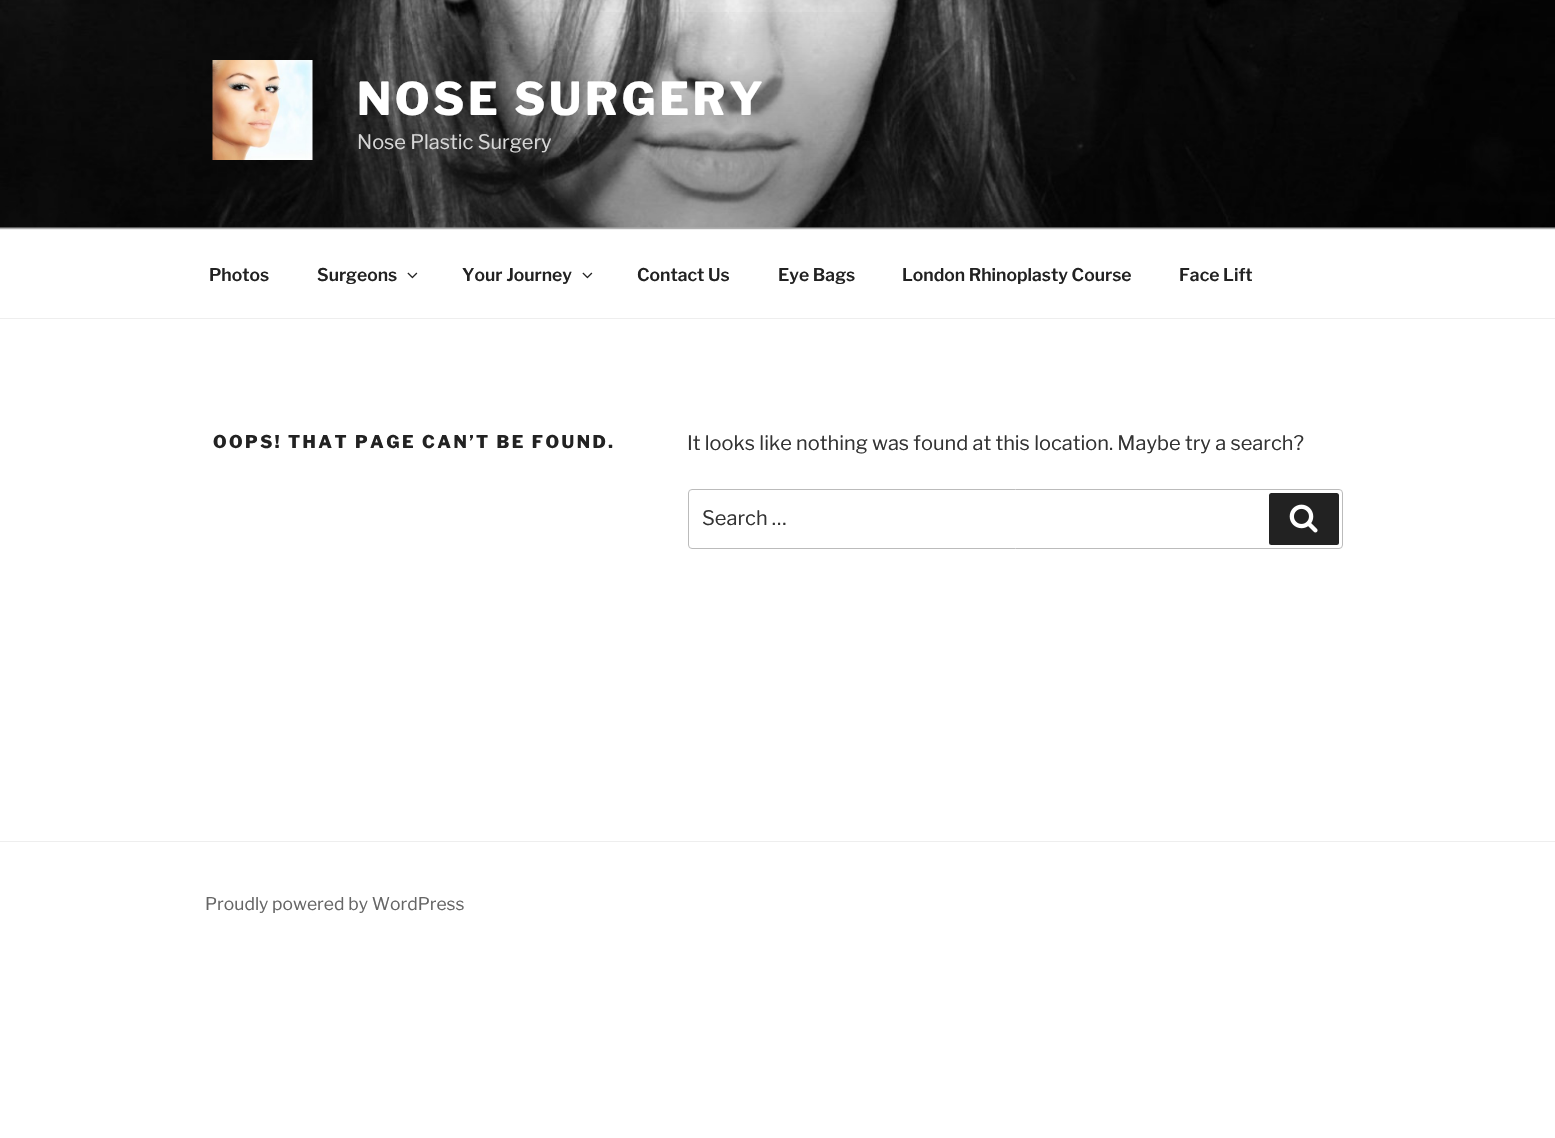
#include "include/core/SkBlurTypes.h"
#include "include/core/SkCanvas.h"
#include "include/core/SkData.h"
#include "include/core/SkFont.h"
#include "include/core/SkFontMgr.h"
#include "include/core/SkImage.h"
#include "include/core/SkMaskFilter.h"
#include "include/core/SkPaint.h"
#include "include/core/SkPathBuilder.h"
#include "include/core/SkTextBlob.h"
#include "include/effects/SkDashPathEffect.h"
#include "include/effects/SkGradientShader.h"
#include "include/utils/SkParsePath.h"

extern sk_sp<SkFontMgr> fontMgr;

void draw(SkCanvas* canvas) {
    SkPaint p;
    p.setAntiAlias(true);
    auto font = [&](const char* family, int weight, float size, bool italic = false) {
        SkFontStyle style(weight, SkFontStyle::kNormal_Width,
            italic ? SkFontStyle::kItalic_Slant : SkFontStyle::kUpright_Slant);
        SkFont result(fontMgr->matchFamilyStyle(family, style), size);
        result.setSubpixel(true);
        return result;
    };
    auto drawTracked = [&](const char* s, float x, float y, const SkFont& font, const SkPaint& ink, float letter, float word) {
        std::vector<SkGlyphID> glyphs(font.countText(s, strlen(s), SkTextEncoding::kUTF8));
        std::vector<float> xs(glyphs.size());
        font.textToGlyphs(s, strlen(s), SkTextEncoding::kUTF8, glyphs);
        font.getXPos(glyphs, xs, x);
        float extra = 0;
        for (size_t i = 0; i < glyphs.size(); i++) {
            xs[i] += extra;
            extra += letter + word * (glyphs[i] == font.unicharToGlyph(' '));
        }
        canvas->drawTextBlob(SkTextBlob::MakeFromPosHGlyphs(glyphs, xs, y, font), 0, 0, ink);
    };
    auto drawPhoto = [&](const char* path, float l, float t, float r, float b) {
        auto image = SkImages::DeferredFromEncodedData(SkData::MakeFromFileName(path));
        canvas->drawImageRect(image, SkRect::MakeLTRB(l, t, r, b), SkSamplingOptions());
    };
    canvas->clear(0xFFFFFFFF);
    p.setColor(0xFFFAFAFA);
    canvas->drawRect(SkRect::MakeLTRB(0, 227, 1555, 229), p);
    drawPhoto("media/1.png", 0, 0, 1555, 228);
    {
        const SkColor colors[] = {0x00000000, 0x4D000000, 0x4D000000};
        const float stops[] = {0, 0.75f, 1};
        const SkPoint ends[] = {{778, 0}, {778, 229}};
        p.setShader(SkGradientShader::MakeLinear(ends, colors, stops, 3, SkTileMode::kClamp));
        p.setAlpha(255);
    }
    canvas->drawRect(SkRect::MakeLTRB(0, 12, 1555, 229), p);
    drawPhoto("media/2.png", 212, 60, 313, 160);
    auto font1 = font("Libre Franklin", 100, 45);
    p.setShader(nullptr);
    p.setColor(0xFFFFFFFF);
    drawTracked("NOSE SURGERY", 357, 115, font1, p, 3.6f, 0);
    auto font2 = font("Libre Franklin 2", 100, 20);
    p.setColor(0xFFD7D7D7);
    canvas->drawString("Nose Plastic Surgery", 357, 149, font2, p);
    p.setColor(0xFFEEEEEE);
    canvas->drawRect(SkRect::MakeLTRB(0, 229, 1555, 230), p);
    canvas->drawRect(SkRect::MakeLTRB(0, 318, 1555, 319), p);
    auto font3 = font("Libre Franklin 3", 100, 17.5f);
    p.setColor(0xFF222222);
    canvas->drawString("Photos", 209, 281, font3, p);
    canvas->drawString("Surgeons", 317, 281, font3, p);
    drawPhoto("media/3.png", 407, 272, 418, 279);
    canvas->drawString("Your Journey", 462, 281, font3, p);
    drawPhoto("media/3.png", 582, 272, 593, 279);
    {
        const struct { const char* s; float x, y; } items[] = {
            {"Contact Us", 637, 281},
            {"Eye Bags", 778, 281},
            {"London Rhinoplasty Course", 902, 281},
            {"Face Lift", 1179, 281},
        };
        for (auto [s, x, y] : items) {
            canvas->drawString(s, x, y, font3, p);
        }
    }
    auto font4 = font("Libre Franklin", 100, 17.5f);
    drawTracked("OOPS! THAT PAGE CAN’T BE FOUND.", 213, 448, font4, p, 2.45f, 0);
    p.setColor(0xFF333333);
    canvas->drawString("It looks like nothing was found at this location. Maybe try a search?", 687, 450, font2, p);
    p.setStyle(SkPaint::kStroke_Style);
    p.setStrokeWidth(1);
    p.setColor(0xFFBBBBBB);
    canvas->drawRoundRect(SkRect::MakeLTRB(688.5f, 489.5f, 1342.5f, 548.5f), 3.5f, 3.5f, p);
    p.setStyle(SkPaint::kFill_Style);
    p.setColor(0xFF333333);
    canvas->drawString("Search …", 702, 525, font2, p);
    p.setColor(0xFF222222);
    canvas->drawRoundRect(SkRect::MakeLTRB(1269, 493, 1339, 545), 2.5f, 2.5f, p);
    drawPhoto("media/4.png", 1289, 504, 1318, 533);
    p.setColor(0xFFEEEEEE);
    canvas->drawRect(SkRect::MakeLTRB(0, 841, 1555, 842), p);
    auto font5 = font("Libre Franklin 2", 100, 17.5f);
    p.setColor(0xFF666666);
    canvas->drawString("Proudly powered by WordPress", 205, 910, font5, p);
}
